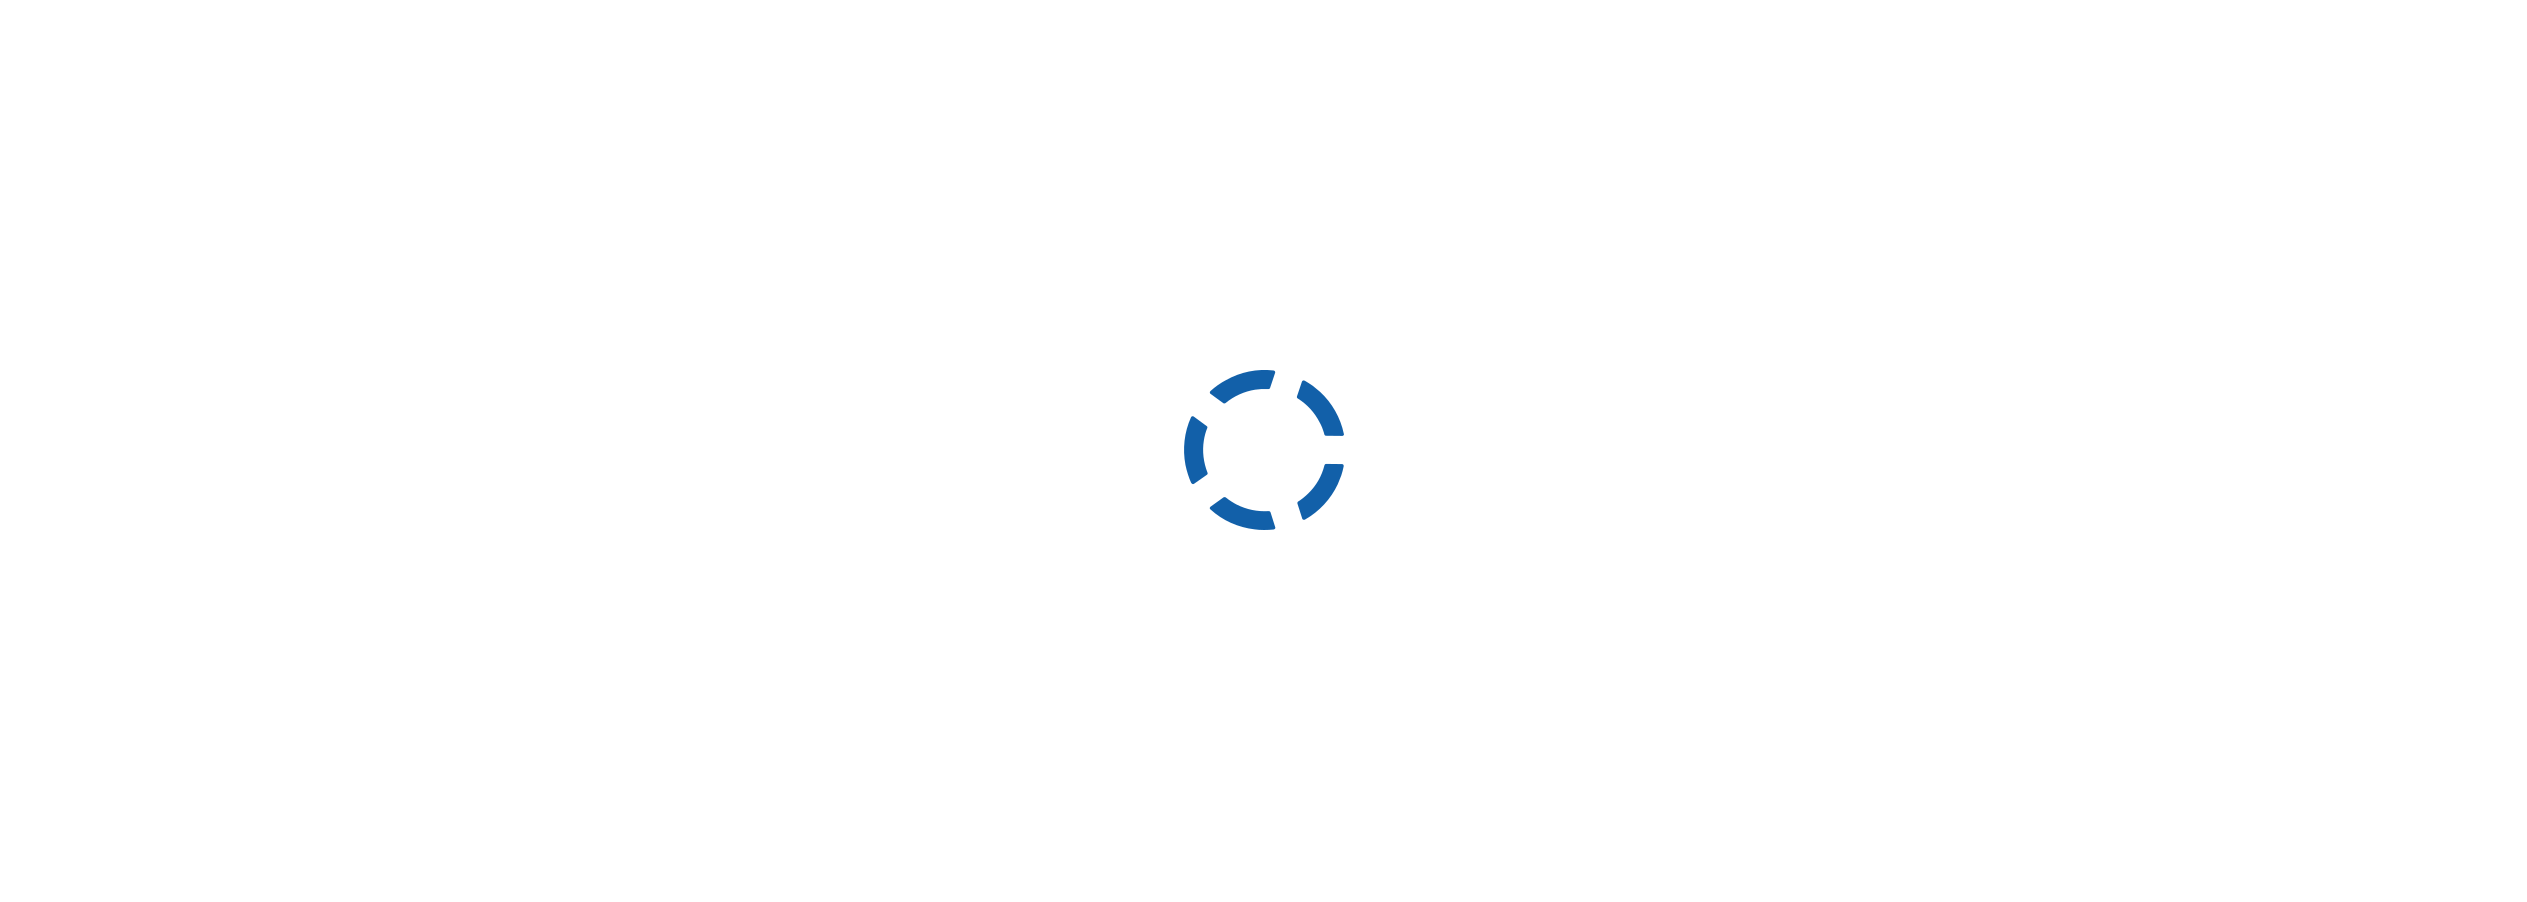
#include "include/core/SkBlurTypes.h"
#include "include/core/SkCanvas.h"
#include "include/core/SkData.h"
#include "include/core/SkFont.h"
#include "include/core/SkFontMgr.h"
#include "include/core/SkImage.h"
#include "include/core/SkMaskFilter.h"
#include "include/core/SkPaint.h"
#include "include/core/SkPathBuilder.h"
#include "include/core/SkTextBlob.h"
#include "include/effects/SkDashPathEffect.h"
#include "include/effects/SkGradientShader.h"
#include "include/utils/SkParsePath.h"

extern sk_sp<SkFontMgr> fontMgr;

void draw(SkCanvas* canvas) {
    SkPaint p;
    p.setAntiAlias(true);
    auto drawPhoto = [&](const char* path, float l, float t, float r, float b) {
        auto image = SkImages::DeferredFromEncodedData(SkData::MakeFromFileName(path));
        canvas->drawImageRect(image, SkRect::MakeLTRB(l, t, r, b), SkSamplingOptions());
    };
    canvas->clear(0xFFFFFFFF);
    drawPhoto("media/1.png", 1184, 370, 1344, 530);
}
